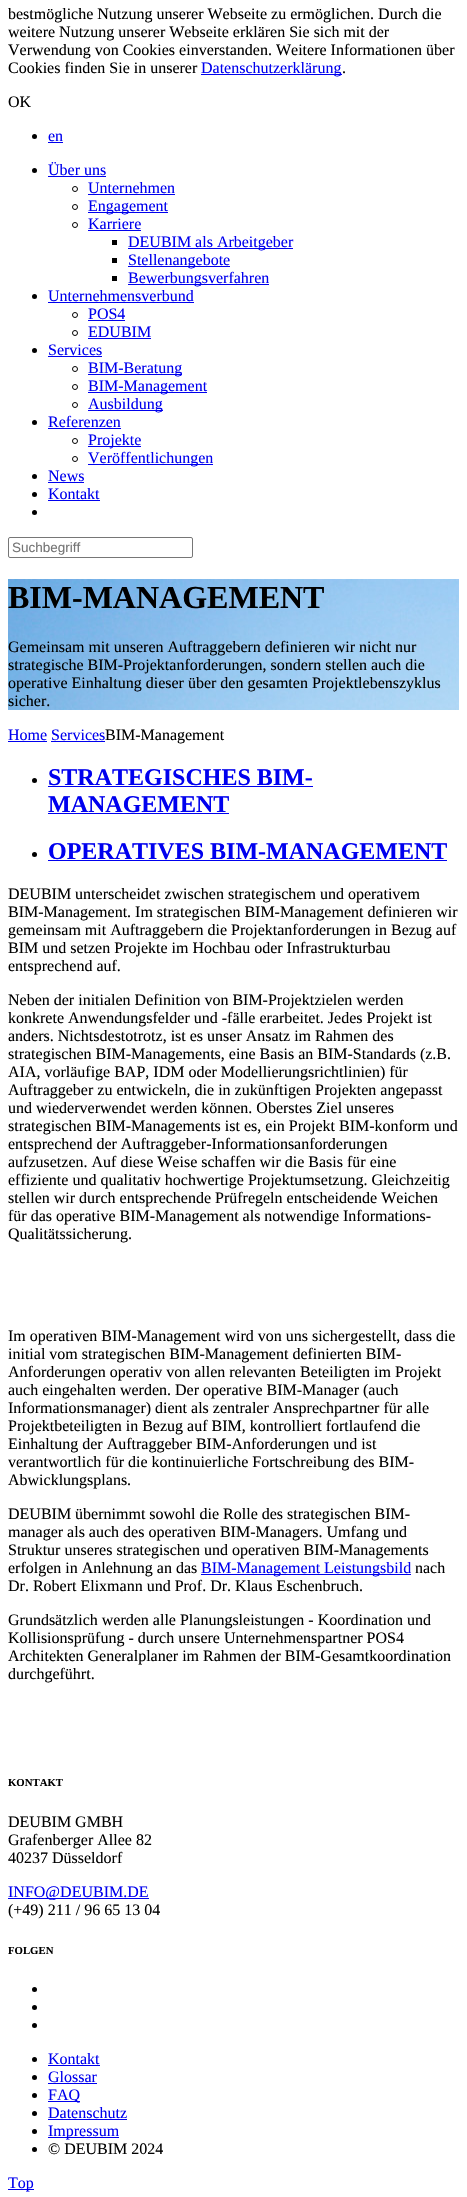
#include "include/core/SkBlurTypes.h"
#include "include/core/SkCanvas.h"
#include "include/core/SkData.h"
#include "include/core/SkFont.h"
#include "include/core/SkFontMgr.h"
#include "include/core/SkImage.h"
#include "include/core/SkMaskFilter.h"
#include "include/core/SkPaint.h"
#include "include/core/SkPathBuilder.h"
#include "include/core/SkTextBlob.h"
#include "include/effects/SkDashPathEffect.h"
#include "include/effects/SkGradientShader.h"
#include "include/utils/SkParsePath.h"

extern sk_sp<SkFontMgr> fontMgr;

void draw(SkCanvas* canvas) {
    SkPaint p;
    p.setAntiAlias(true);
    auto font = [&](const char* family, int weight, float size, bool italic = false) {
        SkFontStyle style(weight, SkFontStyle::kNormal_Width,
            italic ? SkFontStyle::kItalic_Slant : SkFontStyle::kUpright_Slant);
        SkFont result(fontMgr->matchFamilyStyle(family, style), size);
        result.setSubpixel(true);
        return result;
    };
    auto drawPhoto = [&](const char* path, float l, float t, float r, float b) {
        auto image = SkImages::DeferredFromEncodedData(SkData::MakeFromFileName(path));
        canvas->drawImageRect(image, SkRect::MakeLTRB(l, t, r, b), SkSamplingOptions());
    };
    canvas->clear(0xFFFFFFFF);
    auto font1 = font("Liberation Serif", 400, 16);
    p.setColor(0xFF000000);
    {
        const struct { const char* s; float x, y; } items[] = {
            {"bestmögliche Nutzung unserer Webseite zu ermöglichen. Durch die", 8, 19},
            {"weitere Nutzung unserer Webseite erklären Sie sich mit der", 8, 37},
            {"Verwendung von Cookies einverstanden. Weitere Informationen über", 8, 55},
            {"Cookies finden Sie in unserer", 8, 73},
        };
        for (auto [s, x, y] : items) {
            canvas->drawString(s, x, y, font1, p);
        }
    }
    p.setColor(0xFF0000EE);
    canvas->drawRect(SkRect::MakeLTRB(201, 74, 342, 75), p);
    canvas->drawString("Datenschutzerklärung", 201, 73, font1, p);
    p.setColor(0xFF000000);
    canvas->drawString(".", 342, 73, font1, p);
    canvas->drawString("OK", 8, 107, font1, p);
    canvas->drawCircle(34.5f, 136.5f, 2.5f, p);
    p.setColor(0xFF0000EE);
    canvas->drawString("en", 48, 141, font1, p);
    canvas->drawRect(SkRect::MakeLTRB(48, 142, 63, 143), p);
    p.setColor(0xFF000000);
    canvas->drawCircle(34.5f, 170.5f, 2.5f, p);
    p.setColor(0xFF0000EE);
    canvas->drawString("Über uns", 48, 175, font1, p);
    canvas->drawRect(SkRect::MakeLTRB(48, 176, 106, 177), p);
    p.setStyle(SkPaint::kStroke_Style);
    p.setStrokeWidth(1);
    p.setColor(0xFF000000);
    canvas->drawCircle(75, 189, 2.5f, p);
    p.setStyle(SkPaint::kFill_Style);
    p.setColor(0xFF0000EE);
    canvas->drawString("Unternehmen", 88, 193, font1, p);
    canvas->drawRect(SkRect::MakeLTRB(88, 194, 175, 195), p);
    p.setStyle(SkPaint::kStroke_Style);
    p.setColor(0xFF000000);
    canvas->drawCircle(75, 207, 2.5f, p);
    p.setStyle(SkPaint::kFill_Style);
    p.setColor(0xFF0000EE);
    canvas->drawRect(SkRect::MakeLTRB(88, 212, 168, 213), p);
    canvas->drawString("Engagement", 88, 211, font1, p);
    p.setStyle(SkPaint::kStroke_Style);
    p.setColor(0xFF000000);
    canvas->drawCircle(75, 225, 2.5f, p);
    p.setStyle(SkPaint::kFill_Style);
    p.setColor(0xFF0000EE);
    canvas->drawString("Karriere", 88, 229, font1, p);
    {
        const struct { float l, t, r, b; SkColor color; } items[] = {
            {88, 230, 141, 231, 0xFF0000EE},
            {112, 240, 117, 245, 0xFF000000},
            {128, 248, 293, 249, 0xFF0000EE},
        };
        for (auto [l, t, r, b, color] : items) {
            p.setColor(color);
            canvas->drawRect(SkRect::MakeLTRB(l, t, r, b), p);
        }
    }
    canvas->drawString("DEUBIM als Arbeitgeber", 128, 247, font1, p);
    p.setColor(0xFF000000);
    canvas->drawRect(SkRect::MakeLTRB(112, 258, 117, 263), p);
    p.setColor(0xFF0000EE);
    canvas->drawRect(SkRect::MakeLTRB(128, 266, 230, 267), p);
    canvas->drawString("Stellenangebote", 128, 265, font1, p);
    p.setColor(0xFF000000);
    canvas->drawRect(SkRect::MakeLTRB(112, 276, 117, 281), p);
    p.setColor(0xFF0000EE);
    canvas->drawRect(SkRect::MakeLTRB(128, 284, 269, 285), p);
    canvas->drawString("Bewerbungsverfahren", 128, 283, font1, p);
    p.setColor(0xFF000000);
    canvas->drawCircle(34.5f, 296.5f, 2.5f, p);
    p.setColor(0xFF0000EE);
    canvas->drawString("Unternehmensverbund", 48, 301, font1, p);
    canvas->drawRect(SkRect::MakeLTRB(48, 302, 194, 303), p);
    p.setStyle(SkPaint::kStroke_Style);
    p.setColor(0xFF000000);
    canvas->drawCircle(75, 315, 2.5f, p);
    p.setStyle(SkPaint::kFill_Style);
    p.setColor(0xFF0000EE);
    canvas->drawString("POS4", 88, 319, font1, p);
    canvas->drawRect(SkRect::MakeLTRB(88, 320, 125, 321), p);
    p.setStyle(SkPaint::kStroke_Style);
    p.setColor(0xFF000000);
    canvas->drawCircle(75, 333, 2.5f, p);
    p.setStyle(SkPaint::kFill_Style);
    p.setColor(0xFF0000EE);
    canvas->drawString("EDUBIM", 88, 337, font1, p);
    canvas->drawRect(SkRect::MakeLTRB(88, 338, 151, 339), p);
    p.setColor(0xFF000000);
    canvas->drawCircle(34.5f, 350.5f, 2.5f, p);
    p.setColor(0xFF0000EE);
    canvas->drawString("Services", 48, 355, font1, p);
    canvas->drawRect(SkRect::MakeLTRB(48, 356, 102, 357), p);
    p.setStyle(SkPaint::kStroke_Style);
    p.setColor(0xFF000000);
    canvas->drawCircle(75, 369, 2.5f, p);
    p.setStyle(SkPaint::kFill_Style);
    p.setColor(0xFF0000EE);
    canvas->drawRect(SkRect::MakeLTRB(88, 374, 182, 375), p);
    canvas->drawString("BIM-Beratung", 88, 373, font1, p);
    p.setStyle(SkPaint::kStroke_Style);
    p.setColor(0xFF000000);
    canvas->drawCircle(75, 387, 2.5f, p);
    p.setStyle(SkPaint::kFill_Style);
    p.setColor(0xFF0000EE);
    canvas->drawRect(SkRect::MakeLTRB(88, 392, 207, 393), p);
    canvas->drawString("BIM-Management", 88, 391, font1, p);
    p.setStyle(SkPaint::kStroke_Style);
    p.setColor(0xFF000000);
    canvas->drawCircle(75, 405, 2.5f, p);
    p.setStyle(SkPaint::kFill_Style);
    p.setColor(0xFF0000EE);
    canvas->drawRect(SkRect::MakeLTRB(88, 410, 163, 411), p);
    canvas->drawString("Ausbildung", 88, 409, font1, p);
    p.setColor(0xFF000000);
    canvas->drawCircle(34.5f, 422.5f, 2.5f, p);
    p.setColor(0xFF0000EE);
    canvas->drawString("Referenzen", 48, 427, font1, p);
    canvas->drawRect(SkRect::MakeLTRB(48, 428, 121, 429), p);
    p.setStyle(SkPaint::kStroke_Style);
    p.setColor(0xFF000000);
    canvas->drawCircle(75, 441, 2.5f, p);
    p.setStyle(SkPaint::kFill_Style);
    p.setColor(0xFF0000EE);
    canvas->drawRect(SkRect::MakeLTRB(88, 446, 141, 447), p);
    canvas->drawString("Projekte", 88, 445, font1, p);
    p.setStyle(SkPaint::kStroke_Style);
    p.setColor(0xFF000000);
    canvas->drawCircle(75, 459, 2.5f, p);
    p.setStyle(SkPaint::kFill_Style);
    p.setColor(0xFF0000EE);
    canvas->drawRect(SkRect::MakeLTRB(88, 464, 213, 465), p);
    canvas->drawString("Veröffentlichungen", 88, 463, font1, p);
    p.setColor(0xFF000000);
    canvas->drawCircle(34.5f, 476.5f, 2.5f, p);
    p.setColor(0xFF0000EE);
    canvas->drawString("News", 48, 481, font1, p);
    canvas->drawRect(SkRect::MakeLTRB(48, 482, 84, 483), p);
    p.setColor(0xFF000000);
    canvas->drawCircle(34.5f, 494.5f, 2.5f, p);
    p.setColor(0xFF0000EE);
    canvas->drawString("Kontakt", 48, 499, font1, p);
    canvas->drawRect(SkRect::MakeLTRB(48, 500, 100, 501), p);
    p.setColor(0xFF000000);
    canvas->drawCircle(34.5f, 512.5f, 2.5f, p);
    p.setStyle(SkPaint::kStroke_Style);
    p.setColor(0xFF767676);
    canvas->drawRoundRect(SkRect::MakeLTRB(8.5f, 537.5f, 192.5f, 557.5f), 1.5f, 1.5f, p);
    auto font2 = font("Liberation Sans", 400, 13.5f);
    p.setStyle(SkPaint::kFill_Style);
    p.setColor(0xFF757575);
    canvas->drawString("Suchbegriff", 12, 552, font2, p);
    drawPhoto("media/1.png", 8, 579, 459, 710);
    auto font3 = font("Liberation Serif", 700, 32);
    p.setColor(0xFF000000);
    canvas->drawString("BIM-MANAGEMENT", 8, 608, font3, p);
    {
        const struct { const char* s; float x, y; } items[] = {
            {"Gemeinsam mit unseren Auftraggebern definieren wir nicht nur", 8, 652},
            {"strategische BIM-Projektanforderungen, sondern stellen auch die", 8, 670},
            {"operative Einhaltung dieser über den gesamten Projektlebenszyklus", 8, 688},
            {"sicher.", 8, 706},
        };
        for (auto [s, x, y] : items) {
            canvas->drawString(s, x, y, font1, p);
        }
    }
    p.setColor(0xFF0000EE);
    canvas->drawString("Home Services", 8, 740, font1, p);
    canvas->drawRect(SkRect::MakeLTRB(8, 741, 47, 742), p);
    p.setColor(0xFF000000);
    canvas->drawString("BIM-Management", 105, 740, font1, p);
    p.setColor(0xFF0000EE);
    canvas->drawRect(SkRect::MakeLTRB(51, 741, 105, 742), p);
    p.setColor(0xFF000000);
    canvas->drawCircle(34.5f, 780.5f, 2.5f, p);
    auto font4 = font("Liberation Serif", 700, 24);
    p.setColor(0xFF0000EE);
    canvas->drawString("STRATEGISCHES BIM-", 48, 785, font4, p);
    canvas->drawRect(SkRect::MakeLTRB(48, 786, 313, 787), p);
    canvas->drawString("MANAGEMENT", 48, 812, font4, p);
    canvas->drawRect(SkRect::MakeLTRB(48, 813, 229, 814), p);
    p.setColor(0xFF000000);
    canvas->drawCircle(34.5f, 854.5f, 2.5f, p);
    p.setColor(0xFF0000EE);
    canvas->drawString("OPERATIVES BIM-MANAGEMENT", 48, 859, font4, p);
    canvas->drawRect(SkRect::MakeLTRB(48, 860, 447, 861), p);
    p.setColor(0xFF000000);
    {
        const struct { const char* s; float x, y; } items[] = {
            {"DEUBIM unterscheidet zwischen strategischem und operativem", 8, 899},
            {"BIM-Management. Im strategischen BIM-Management definieren wir", 8, 917},
            {"gemeinsam mit Auftraggebern die Projektanforderungen in Bezug auf", 8, 935},
            {"BIM und setzen Projekte im Hochbau oder Infrastrukturbau", 8, 953},
            {"entsprechend auf.", 8, 971},
            {"Neben der initialen Definition von BIM-Projektzielen werden", 8, 1005},
            {"konkrete Anwendungsfelder und -fälle erarbeitet. Jedes Projekt ist", 8, 1023},
            {"anders. Nichtsdestotrotz, ist es unser Ansatz im Rahmen des", 8, 1041},
            {"strategischen BIM-Managements, eine Basis an BIM-Standards (z.B.", 8, 1059},
            {"AIA, vorläufige BAP, IDM oder Modellierungsrichtlinien) für", 8, 1077},
            {"Auftraggeber zu entwickeln, die in zukünftigen Projekten angepasst", 8, 1095},
            {"und wiederverwendet werden können. Oberstes Ziel unseres", 8, 1113},
            {"strategischen BIM-Managements ist es, ein Projekt BIM-konform und", 8, 1131},
            {"entsprechend der Auftraggeber-Informationsanforderungen", 8, 1149},
            {"aufzusetzen. Auf diese Weise schaffen wir die Basis für eine", 8, 1167},
            {"effiziente und qualitativ hochwertige Projektumsetzung. Gleichzeitig", 8, 1185},
            {"stellen wir durch entsprechende Prüfregeln entscheidende Weichen", 8, 1203},
            {"für das operative BIM-Management als notwendige Informations-", 8, 1221},
            {"Qualitätssicherung.", 8, 1239},
            {"Im operativen BIM-Management wird von uns sichergestellt, dass die", 8, 1341},
            {"initial vom strategischen BIM-Management definierten BIM-", 8, 1359},
            {"Anforderungen operativ von allen relevanten Beteiligten im Projekt", 8, 1377},
            {"auch eingehalten werden. Der operative BIM-Manager (auch", 8, 1395},
            {"Informationsmanager) dient als zentraler Ansprechpartner für alle", 8, 1413},
            {"Projektbeteiligten in Bezug auf BIM, kontrolliert fortlaufend die", 8, 1431},
            {"Einhaltung der Auftraggeber BIM-Anforderungen und ist", 8, 1449},
            {"verantwortlich für die kontinuierliche Fortschreibung des BIM-", 8, 1467},
            {"Abwicklungsplans.", 8, 1485},
            {"DEUBIM übernimmt sowohl die Rolle des strategischen BIM-", 8, 1519},
            {"manager als auch des operativen BIM-Managers. Umfang und", 8, 1537},
            {"Struktur unseres strategischen und operativen BIM-Managements", 8, 1555},
            {"erfolgen in Anlehnung an das", 8, 1573},
        };
        for (auto [s, x, y] : items) {
            canvas->drawString(s, x, y, font1, p);
        }
    }
    p.setColor(0xFF0000EE);
    canvas->drawRect(SkRect::MakeLTRB(201, 1574, 411, 1575), p);
    canvas->drawString("BIM-Management Leistungsbild", 201, 1573, font1, p);
    p.setColor(0xFF000000);
    {
        const struct { const char* s; float x, y; } items[] = {
            {"nach", 415, 1573},
            {"Dr. Robert Elixmann und Prof. Dr. Klaus Eschenbruch.", 8, 1591},
            {"Grundsätzlich werden alle Planungsleistungen - Koordination und", 8, 1625},
            {"Kollisionsprüfung - durch unsere Unternehmenspartner POS4", 8, 1643},
            {"Architekten Generalplaner im Rahmen der BIM-Gesamtkoordination", 8, 1661},
            {"durchgeführt.", 8, 1679},
        };
        for (auto [s, x, y] : items) {
            canvas->drawString(s, x, y, font1, p);
        }
    }
    auto font5 = font("Liberation Serif", 700, 10.75f);
    canvas->drawString("KONTAKT", 8, 1786, font5, p);
    {
        const struct { const char* s; float x, y; } items[] = {
            {"DEUBIM GMBH", 8, 1827},
            {"Grafenberger Allee 82", 8, 1845},
            {"40237 Düsseldorf", 8, 1863},
        };
        for (auto [s, x, y] : items) {
            canvas->drawString(s, x, y, font1, p);
        }
    }
    p.setColor(0xFF0000EE);
    canvas->drawRect(SkRect::MakeLTRB(8, 1898, 149, 1899), p);
    canvas->drawString("INFO@DEUBIM.DE", 8, 1897, font1, p);
    p.setColor(0xFF000000);
    canvas->drawString("(+49) 211 / 96 65 13 04", 8, 1915, font1, p);
    canvas->drawString("FOLGEN", 8, 1954, font5, p);
    canvas->drawCircle(34.5f, 1989.5f, 2.5f, p);
    canvas->drawCircle(34.5f, 2007.5f, 2.5f, p);
    canvas->drawCircle(34.5f, 2025.5f, 2.5f, p);
    canvas->drawCircle(34.5f, 2059.5f, 2.5f, p);
    p.setColor(0xFF0000EE);
    canvas->drawString("Kontakt", 48, 2064, font1, p);
    canvas->drawRect(SkRect::MakeLTRB(48, 2065, 100, 2066), p);
    p.setColor(0xFF000000);
    canvas->drawCircle(34.5f, 2077.5f, 2.5f, p);
    p.setColor(0xFF0000EE);
    canvas->drawString("Glossar", 48, 2082, font1, p);
    canvas->drawRect(SkRect::MakeLTRB(48, 2083, 97, 2084), p);
    p.setColor(0xFF000000);
    canvas->drawCircle(34.5f, 2095.5f, 2.5f, p);
    p.setColor(0xFF0000EE);
    canvas->drawRect(SkRect::MakeLTRB(48, 2101, 80, 2102), p);
    canvas->drawString("FAQ", 48, 2100, font1, p);
    p.setColor(0xFF000000);
    canvas->drawCircle(34.5f, 2113.5f, 2.5f, p);
    p.setColor(0xFF0000EE);
    canvas->drawString("Datenschutz", 48, 2118, font1, p);
    canvas->drawRect(SkRect::MakeLTRB(48, 2119, 127, 2120), p);
    p.setColor(0xFF000000);
    canvas->drawCircle(34.5f, 2131.5f, 2.5f, p);
    p.setColor(0xFF0000EE);
    canvas->drawRect(SkRect::MakeLTRB(48, 2137, 119, 2138), p);
    canvas->drawString("Impressum", 48, 2136, font1, p);
    p.setColor(0xFF000000);
    canvas->drawCircle(34.5f, 2149.5f, 2.5f, p);
    canvas->drawString("© DEUBIM 2024", 48, 2154, font1, p);
    p.setColor(0xFF0000EE);
    canvas->drawRect(SkRect::MakeLTRB(8, 2189, 34, 2190), p);
    canvas->drawString("Top", 8, 2188, font1, p);
}
